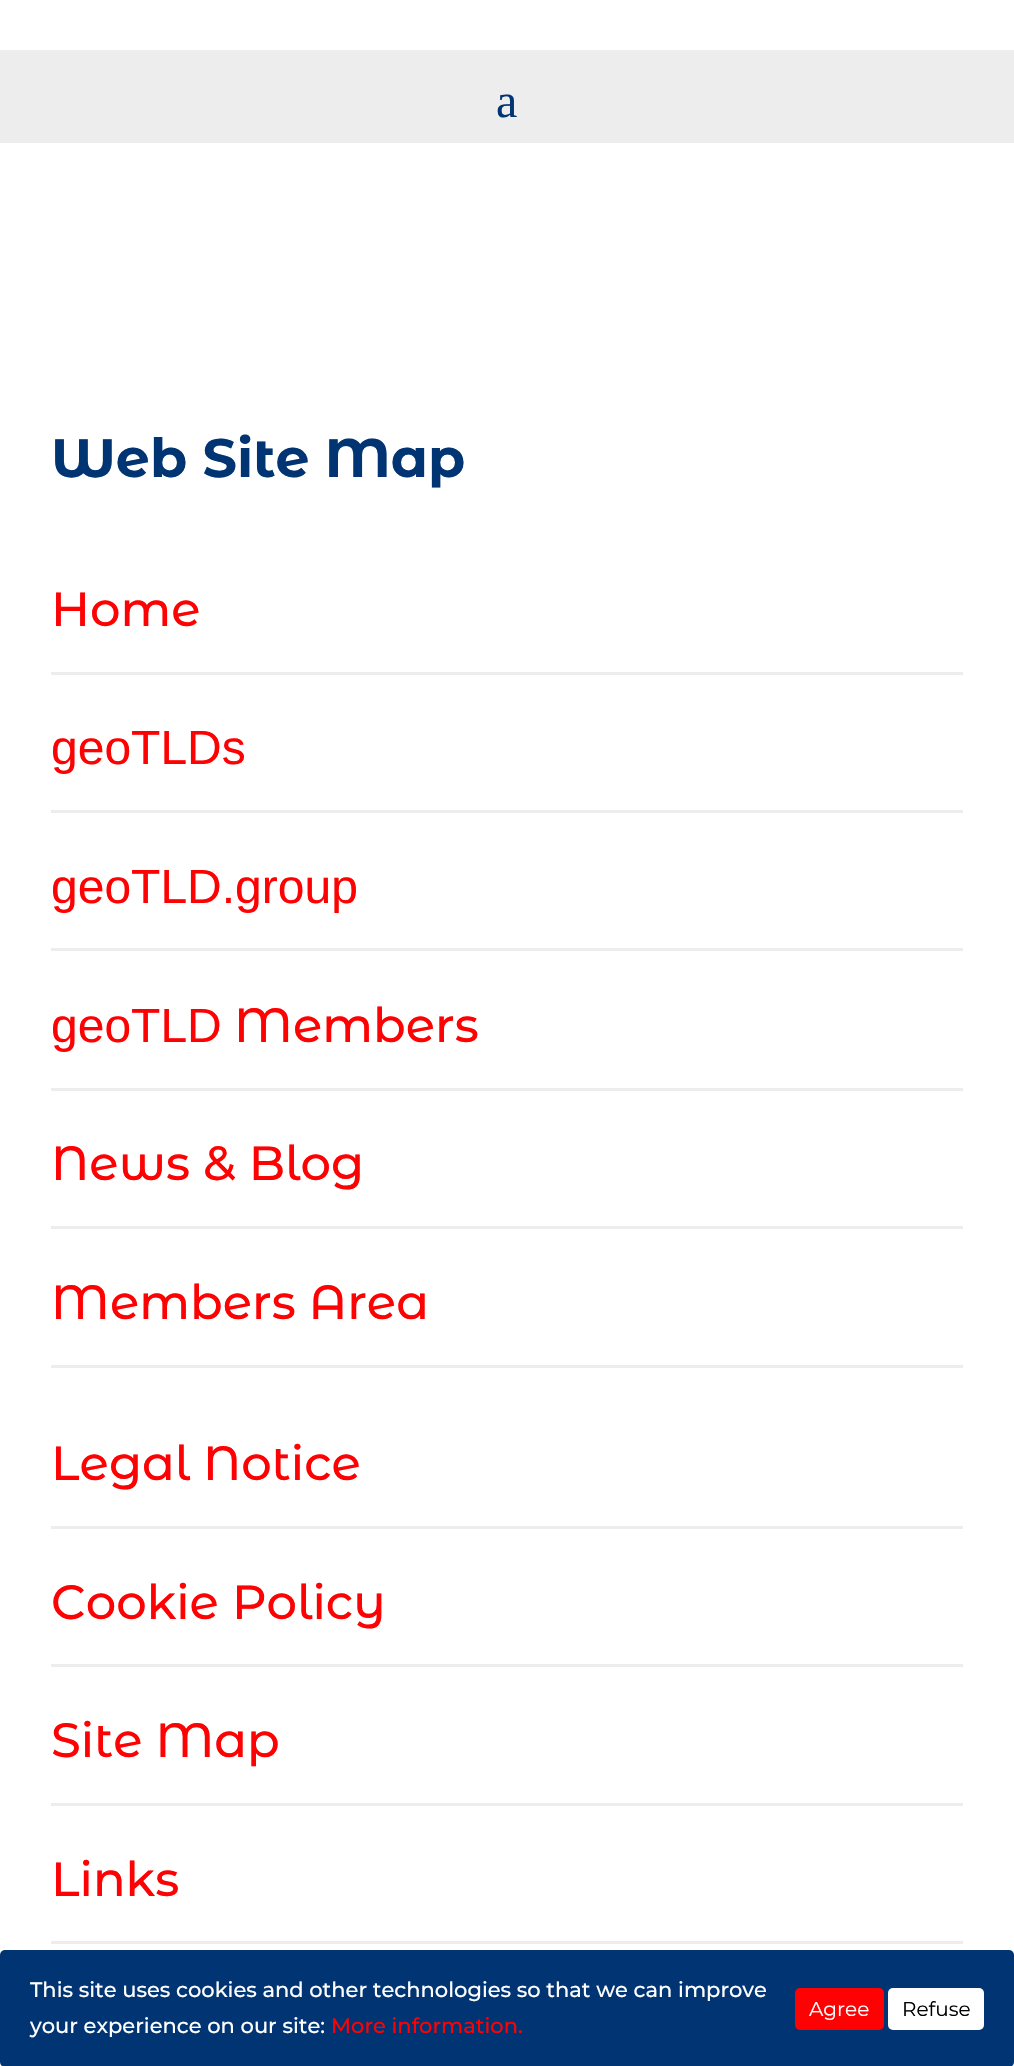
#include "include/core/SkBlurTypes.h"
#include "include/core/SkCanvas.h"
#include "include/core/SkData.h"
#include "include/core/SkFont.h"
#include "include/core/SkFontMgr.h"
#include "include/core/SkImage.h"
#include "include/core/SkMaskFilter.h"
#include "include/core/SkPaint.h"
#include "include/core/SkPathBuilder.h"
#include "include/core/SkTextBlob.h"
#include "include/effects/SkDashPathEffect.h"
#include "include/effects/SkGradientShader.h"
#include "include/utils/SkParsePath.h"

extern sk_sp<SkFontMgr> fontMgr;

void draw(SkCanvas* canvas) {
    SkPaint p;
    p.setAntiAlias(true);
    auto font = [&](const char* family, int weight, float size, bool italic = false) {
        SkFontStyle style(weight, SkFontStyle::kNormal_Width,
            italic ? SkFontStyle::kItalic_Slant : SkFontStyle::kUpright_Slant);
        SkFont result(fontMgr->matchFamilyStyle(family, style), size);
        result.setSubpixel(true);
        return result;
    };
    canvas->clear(0xFFFFFFFF);
    p.setColor(0xFFEDEDED);
    canvas->drawRect(SkRect::MakeLTRB(0, 50, 1014, 143), p);
    auto font1 = font("Liberation Serif", 400, 48);
    p.setColor(0xFF003472);
    canvas->drawString("a", 496, 117, font1, p);
    auto font2 = font("Montserrat Alternates", 700, 54);
    canvas->drawString("Web Site Map", 51, 477, font2, p);
    p.setColor(0xFFEDEDED);
    canvas->drawRect(SkRect::MakeLTRB(51, 672, 963, 675), p);
    auto font3 = font("Montserrat Alternates", 500, 48);
    p.setColor(0xFFFE0103);
    canvas->drawString("Home", 51, 626, font3, p);
    p.setColor(0xFFEDEDED);
    canvas->drawRect(SkRect::MakeLTRB(51, 810, 963, 813), p);
    auto font4 = font("Liberation Sans", 400, 48);
    p.setColor(0xFFFE0103);
    canvas->drawString("geoTLDs", 51, 764, font4, p);
    p.setColor(0xFFEDEDED);
    canvas->drawRect(SkRect::MakeLTRB(51, 948, 963, 951), p);
    p.setColor(0xFFFE0103);
    canvas->drawString("geoTLD.group", 51, 903, font4, p);
    p.setColor(0xFFEDEDED);
    canvas->drawRect(SkRect::MakeLTRB(51, 1088, 963, 1091), p);
    p.setColor(0xFFFE0103);
    canvas->drawString("geoTLD", 51, 1042, font4, p);
    canvas->drawString("Members", 234, 1042, font3, p);
    p.setColor(0xFFEDEDED);
    canvas->drawRect(SkRect::MakeLTRB(51, 1226, 963, 1229), p);
    p.setColor(0xFFFE0103);
    canvas->drawString("News & Blog", 51, 1180, font3, p);
    p.setColor(0xFFEDEDED);
    canvas->drawRect(SkRect::MakeLTRB(51, 1365, 963, 1368), p);
    p.setColor(0xFFFE0103);
    canvas->drawString("Members Area", 51, 1319, font3, p);
    p.setColor(0xFFEDEDED);
    canvas->drawRect(SkRect::MakeLTRB(51, 1526, 963, 1529), p);
    p.setColor(0xFFFE0103);
    canvas->drawString("Legal Notice", 51, 1480, font3, p);
    p.setColor(0xFFEDEDED);
    canvas->drawRect(SkRect::MakeLTRB(51, 1664, 963, 1667), p);
    p.setColor(0xFFFE0103);
    canvas->drawString("Cookie Policy", 51, 1619, font3, p);
    p.setColor(0xFFEDEDED);
    canvas->drawRect(SkRect::MakeLTRB(51, 1803, 963, 1806), p);
    p.setColor(0xFFFE0103);
    canvas->drawString("Site Map", 51, 1757, font3, p);
    p.setColor(0xFFEDEDED);
    canvas->drawRect(SkRect::MakeLTRB(51, 1941, 963, 1944), p);
    p.setColor(0xFFFE0103);
    canvas->drawString("Links", 51, 1896, font3, p);
    p.setColor(0xFF003472);
    canvas->drawRoundRect(SkRect::MakeLTRB(0, 1950, 1014, 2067), 5, 5, p);
    auto font5 = font("Montserrat", 500, 21);
    p.setColor(0xFFFFFFFF);
    canvas->drawString("This site uses cookies and other technologies so that we can improve", 30, 1997, font5, p);
    canvas->drawString("your experience on our site:", 30, 2033, font5, p);
    p.setColor(0xFFFE0103);
    canvas->drawString("More information.", 331, 2033, font5, p);
    canvas->drawRoundRect(SkRect::MakeLTRB(795, 1988, 884, 2030), 5, 5, p);
    auto font6 = font("Montserrat", 400, 20);
    p.setColor(0xFFFFFFFF);
    canvas->drawString("Agree", 809, 2016, font6, p);
    canvas->drawRoundRect(SkRect::MakeLTRB(888, 1988, 984, 2030), 5, 5, p);
    p.setColor(0xFF000000);
    canvas->drawString("Refuse", 902, 2016, font6, p);
}
